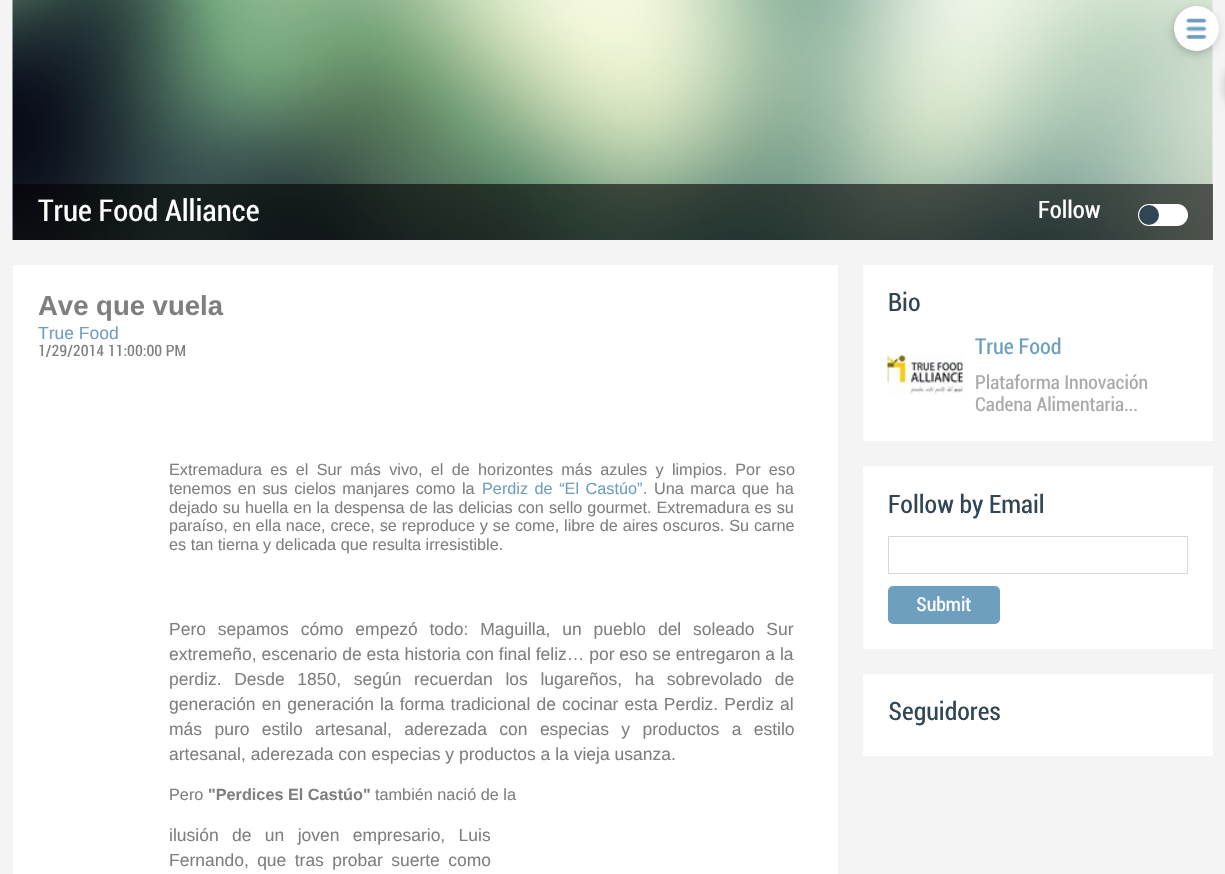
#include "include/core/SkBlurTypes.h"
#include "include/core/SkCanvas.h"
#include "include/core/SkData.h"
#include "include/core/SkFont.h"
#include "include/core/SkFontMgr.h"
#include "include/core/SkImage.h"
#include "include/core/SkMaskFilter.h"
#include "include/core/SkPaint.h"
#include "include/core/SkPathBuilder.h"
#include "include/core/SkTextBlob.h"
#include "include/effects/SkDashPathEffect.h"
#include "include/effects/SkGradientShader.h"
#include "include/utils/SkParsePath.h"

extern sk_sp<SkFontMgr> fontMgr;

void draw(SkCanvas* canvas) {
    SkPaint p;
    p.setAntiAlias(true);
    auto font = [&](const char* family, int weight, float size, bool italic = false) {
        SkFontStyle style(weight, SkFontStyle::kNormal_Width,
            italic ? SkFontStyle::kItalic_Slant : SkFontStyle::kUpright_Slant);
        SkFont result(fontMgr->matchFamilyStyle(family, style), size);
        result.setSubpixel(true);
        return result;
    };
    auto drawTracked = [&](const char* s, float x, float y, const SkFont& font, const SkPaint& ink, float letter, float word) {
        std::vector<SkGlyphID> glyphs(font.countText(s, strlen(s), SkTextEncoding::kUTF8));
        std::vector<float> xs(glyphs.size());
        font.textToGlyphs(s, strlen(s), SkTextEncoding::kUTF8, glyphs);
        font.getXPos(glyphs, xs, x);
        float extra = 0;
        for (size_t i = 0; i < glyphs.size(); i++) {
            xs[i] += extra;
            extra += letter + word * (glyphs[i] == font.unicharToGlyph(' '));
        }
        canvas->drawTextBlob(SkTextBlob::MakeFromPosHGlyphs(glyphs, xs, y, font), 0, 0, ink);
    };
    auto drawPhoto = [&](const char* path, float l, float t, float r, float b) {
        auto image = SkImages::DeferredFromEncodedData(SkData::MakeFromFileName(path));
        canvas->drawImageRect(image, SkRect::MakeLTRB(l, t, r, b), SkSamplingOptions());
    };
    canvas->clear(0xFFF4F4F4);
    drawPhoto("media/2.png", 12, 0, 1213, 240);
    p.setColor(0x33000000);
    p.setMaskFilter(SkMaskFilter::MakeBlur(kNormal_SkBlurStyle, 4));
    canvas->drawRoundRect(SkRect::MakeLTRB(1173, 9, 1218, 54), 22.5f, 22.5f, p);
    p.setMaskFilter(nullptr);
    p.setColor(0xFFFFFFFF);
    canvas->drawCircle(1196.5f, 28.5f, 22.5f, p);
    drawPhoto("media/1.png", 1186, 18, 1207, 39);
    p.setColor(0x33000000);
    p.setMaskFilter(SkMaskFilter::MakeBlur(kNormal_SkBlurStyle, 4));
    canvas->drawRoundRect(SkRect::MakeLTRB(1225, 64, 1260, 109), 22.5f, 22.5f, p);
    p.setMaskFilter(nullptr);
    p.setColor(0x99000000);
    canvas->drawRect(SkRect::MakeLTRB(13, 184, 1213, 240), p);
    auto font1 = font("Roboto", 400, 31.25f);
    p.setColor(0xFFFFFFFF);
    canvas->drawString("True Food Alliance", 38, 221, font1, p);
    auto font2 = font("Roboto", 400, 25);
    canvas->drawString("Follow", 1038, 218, font2, p);
    canvas->drawRoundRect(SkRect::MakeLTRB(1138, 204, 1188, 226), 11, 11, p);
    p.setColor(0xFF314555);
    canvas->drawCircle(1149, 215, 10, p);
    p.setColor(0xFFFFFFFF);
    canvas->drawRect(SkRect::MakeLTRB(13, 265, 838, 874), p);
    auto font3 = font("Liberation Sans", 700, 27.5f);
    p.setColor(0xFF7F7F7F);
    canvas->drawString("Ave que vuela", 38, 315, font3, p);
    auto font4 = font("Liberation Sans", 400, 17.5f);
    p.setColor(0xFF6E9FBE);
    canvas->drawString("True Food", 38, 339, font4, p);
    auto font5 = font("Roboto", 400, 16.25f);
    p.setColor(0xFF7F7F7F);
    canvas->drawString("1/29/2014 11:00:00 PM", 38, 356, font5, p);
    auto font6 = font("Liberation Sans", 400, 16.25f);
    drawTracked("Extremadura es el Sur más vivo, el de horizontes más azules y limpios. Por eso", 169, 475, font6, p, 0, 3.75f);
    drawTracked("tenemos en sus cielos manjares como la", 169, 494, font6, p, 0, 2);
    p.setColor(0xFF6E9FBE);
    drawTracked("Perdiz de “El Castúo”", 482, 494, font6, p, 0, 2);
    p.setColor(0xFF7F7F7F);
    drawTracked(". Una marca que ha", 643, 494, font6, p, 0, 2);
    drawTracked("dejado su huella en la despensa de las delicias con sello gourmet. Extremadura es su", 169, 513, font6, p, 0, 0.5f);
    drawTracked("paraíso, en ella nace, crece, se reproduce y se come, libre de aires oscuros. Su carne", 169, 531, font6, p, 0, 0.4f);
    canvas->drawString("es tan tierna y delicada que resulta irresistible.", 169, 550, font6, p);
    drawTracked("Pero sepamos cómo empezó todo: Maguilla, un pueblo del soleado Sur", 169, 635, font4, p, 0, 7);
    canvas->drawString("extremeño, escenario de esta historia con final feliz… por eso se entregaron a la", 169, 660, font4, p);
    drawTracked("perdiz. Desde 1850, según recuerdan los lugareños, ha sobrevolado de", 169, 685, font4, p, 0, 7.75f);
    drawTracked("generación en generación la forma tradicional de cocinar esta Perdiz. Perdiz al", 169, 710, font4, p, 0, 1.25f);
    drawTracked("más puro estilo artesanal, aderezada con especias y productos a estilo", 169, 735, font4, p, 0, 7.5f);
    canvas->drawString("artesanal, aderezada con especias y productos a la vieja usanza.", 169, 760, font4, p);
    canvas->drawString("Pero", 169, 800, font6, p);
    auto font7 = font("Liberation Sans", 700, 16.25f);
    canvas->drawString("\"Perdices El Castúo\"", 208, 800, font7, p);
    canvas->drawString("también nació de la", 375, 800, font6, p);
    drawTracked("ilusión de un joven empresario, Luis", 169, 841, font4, p, 0, 8.5f);
    drawTracked("Fernando, que tras probar suerte como", 169, 866, font4, p, 0, 3.5f);
    p.setColor(0xFFFFFFFF);
    canvas->drawRect(SkRect::MakeLTRB(863, 265, 1213, 441), p);
    auto font8 = font("Roboto", 400, 26.25f);
    p.setColor(0xFF314555);
    canvas->drawString("Bio", 888, 311, font8, p);
    drawPhoto("media/3.png", 887, 354, 963, 396);
    auto font9 = font("Roboto", 400, 22.5f);
    p.setColor(0xFF6E9FBE);
    canvas->drawString("True Food", 975, 354, font9, p);
    auto font10 = font("Roboto", 400, 20);
    p.setColor(0xFFAAAAAA);
    canvas->drawString("Plataforma Innovación", 975, 389, font10, p);
    canvas->drawString("Cadena Alimentaria…", 975, 411, font10, p);
    p.setColor(0xFFFFFFFF);
    canvas->drawRect(SkRect::MakeLTRB(863, 466, 1213, 649), p);
    p.setColor(0xFF314555);
    canvas->drawString("Follow by Email", 888, 513, font8, p);
    p.setStyle(SkPaint::kStroke_Style);
    p.setStrokeWidth(1);
    p.setColor(0xFFD7D7D7);
    canvas->drawRect(SkRect::MakeLTRB(888.5f, 536.5f, 1187.5f, 573.5f), p);
    p.setStyle(SkPaint::kFill_Style);
    p.setColor(0xFF6E9FBE);
    canvas->drawRoundRect(SkRect::MakeLTRB(888, 586, 1000, 624), 5, 5, p);
    p.setColor(0xFFFFFFFF);
    canvas->drawString("Submit", 916, 611, font10, p);
    canvas->drawRect(SkRect::MakeLTRB(863, 674, 1213, 756), p);
    p.setColor(0xFF314555);
    canvas->drawString("Seguidores", 888, 720, font8, p);
}
